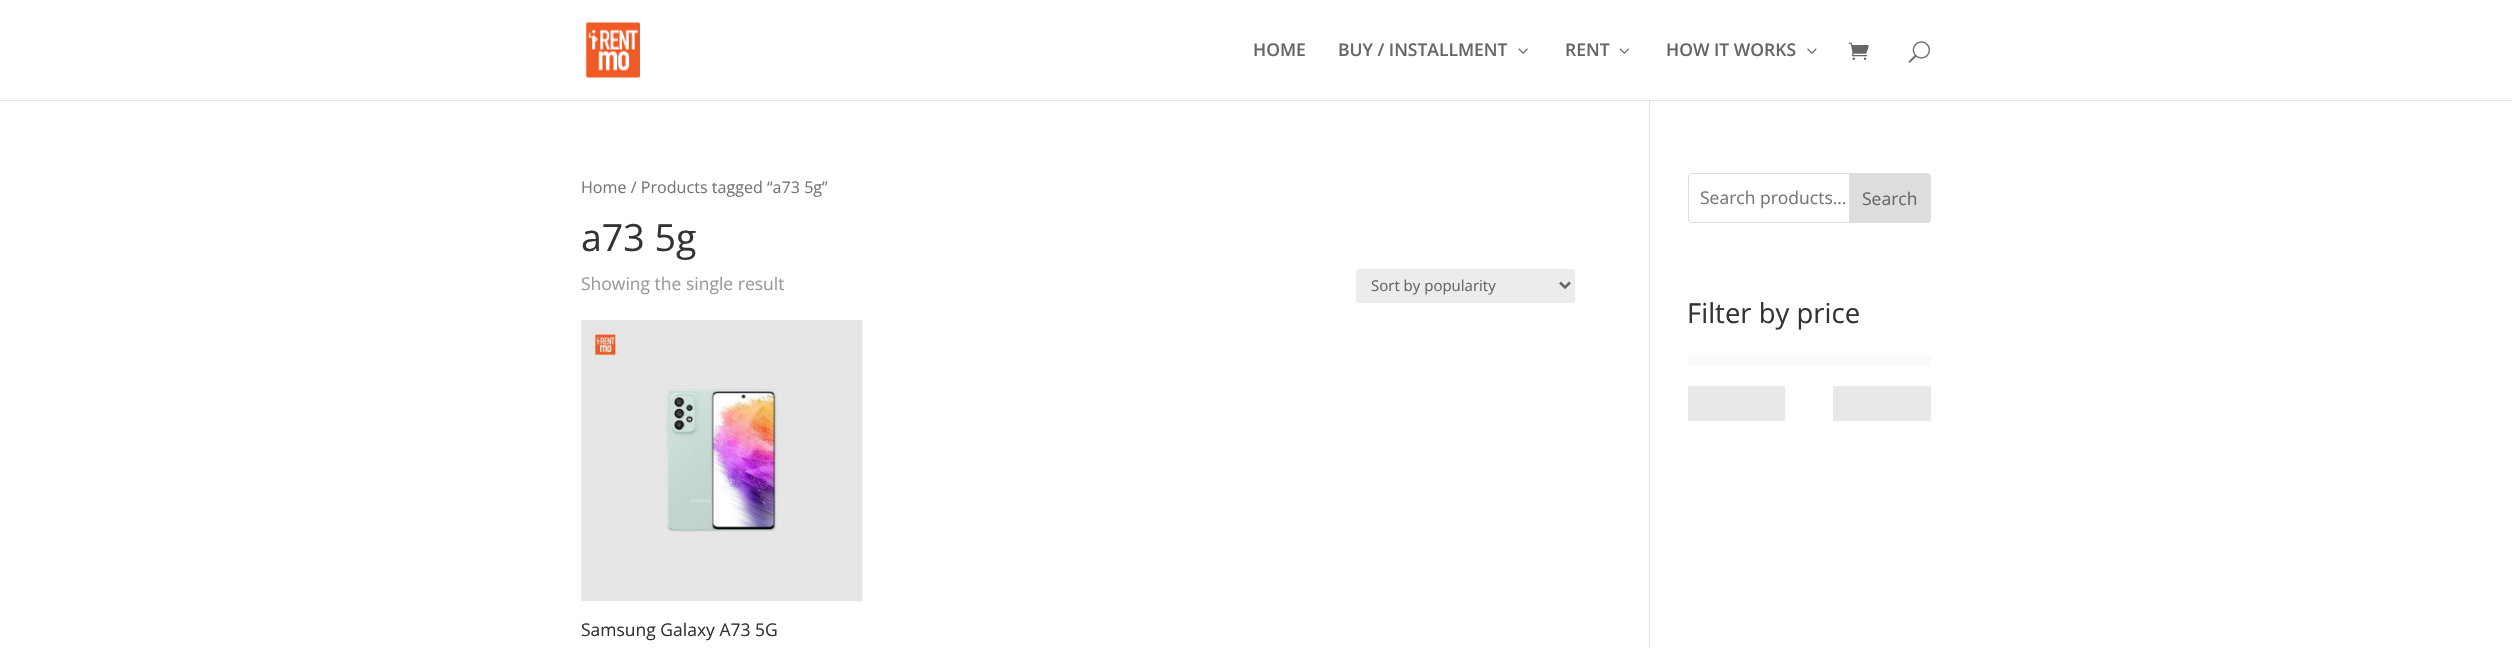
#include "include/core/SkBlurTypes.h"
#include "include/core/SkCanvas.h"
#include "include/core/SkData.h"
#include "include/core/SkFont.h"
#include "include/core/SkFontMgr.h"
#include "include/core/SkImage.h"
#include "include/core/SkMaskFilter.h"
#include "include/core/SkPaint.h"
#include "include/core/SkPathBuilder.h"
#include "include/core/SkTextBlob.h"
#include "include/effects/SkDashPathEffect.h"
#include "include/effects/SkGradientShader.h"
#include "include/utils/SkParsePath.h"

extern sk_sp<SkFontMgr> fontMgr;

void draw(SkCanvas* canvas) {
    SkPaint p;
    p.setAntiAlias(true);
    auto font = [&](const char* family, int weight, float size, bool italic = false) {
        SkFontStyle style(weight, SkFontStyle::kNormal_Width,
            italic ? SkFontStyle::kItalic_Slant : SkFontStyle::kUpright_Slant);
        SkFont result(fontMgr->matchFamilyStyle(family, style), size);
        result.setSubpixel(true);
        return result;
    };
    auto drawPhoto = [&](const char* path, float l, float t, float r, float b) {
        auto image = SkImages::DeferredFromEncodedData(SkData::MakeFromFileName(path));
        canvas->drawImageRect(image, SkRect::MakeLTRB(l, t, r, b), SkSamplingOptions());
    };
    canvas->clear(0xFFFFFFFF);
    p.setColor(0xFFE2E2E2);
    canvas->drawRect(SkRect::MakeLTRB(1649, 100, 1650, 648), p);
    p.setColor(0x1A000000);
    canvas->drawPath(SkPathBuilder().moveTo(0, 100).lineTo(0, 101).lineTo(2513, 101).lineTo(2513, 1).lineTo(2512, 1).lineTo(2512, 100).close().detach(), p);
    drawPhoto("media/1.png", 586, 22, 640, 78);
    auto font1 = font("Open Sans", 600, 17.5f);
    p.setColor(0xFF666666);
    canvas->drawString("HOME", 1253, 56, font1, p);
    canvas->drawString("BUY / INSTALLMENT", 1338, 56, font1, p);
    drawPhoto("media/2.png", 1518, 48, 1528, 54);
    canvas->drawString("RENT", 1565, 56, font1, p);
    drawPhoto("media/3.png", 1619, 48, 1629, 54);
    canvas->drawString("HOW IT WORKS", 1666, 56, font1, p);
    drawPhoto("media/4.png", 1807, 48, 1817, 54);
    drawPhoto("media/5.png", 1848, 42, 1869, 60);
    drawPhoto("media/6.png", 1908, 41, 1930, 63);
    auto font2 = font("Open Sans", 400, 16.1f);
    p.setColor(0xFF767676);
    canvas->drawString("Home / Products tagged “a73 5g”", 581, 193, font2, p);
    auto font3 = font("Open Sans", 400, 37.5f);
    p.setColor(0xFF333333);
    canvas->drawString("a73 5g", 581, 251, font3, p);
    auto font4 = font("Open Sans", 400, 17.5f);
    p.setColor(0xFF999999);
    canvas->drawString("Showing the single result", 581, 290, font4, p);
    p.setColor(0xFFECECEC);
    canvas->drawRoundRect(SkRect::MakeLTRB(1356, 269, 1575, 303), 4, 4, p);
    p.setStyle(SkPaint::kStroke_Style);
    p.setStrokeWidth(2.5f);
    p.setColor(0xFF666666);
    canvas->drawPath(SkPathBuilder().moveTo(1560, 282.5f).lineTo(1565, 287.5f).lineTo(1570, 282.5f).detach(), p);
    auto font5 = font("Open Sans", 400, 15);
    p.setStyle(SkPaint::kFill_Style);
    canvas->drawString("Sort by popularity", 1371, 291, font5, p);
    drawPhoto("media/7.png", 581, 320, 863, 602);
    p.setColor(0xFF333333);
    canvas->drawString("Samsung Galaxy A73 5G", 581, 636, font4, p);
    p.setStyle(SkPaint::kStroke_Style);
    p.setStrokeWidth(1);
    p.setColor(0xFFDDDDDD);
    canvas->drawRoundRect(SkRect::MakeLTRB(1688.5f, 173.5f, 1930.5f, 222.5f), 3.5f, 3.5f, p);
    p.setStyle(SkPaint::kFill_Style);
    p.setColor(0xFF767676);
    canvas->drawString("Search products…", 1700, 204, font4, p);
    p.setColor(0xFFDDDDDD);
    canvas->drawPath(SkPathBuilder().moveTo(1849.5f, 173.5f).lineTo(1927, 173.5f).cubicTo(1929, 173.5f, 1930.5f, 175, 1930.5f, 177).lineTo(1930.5f, 219).cubicTo(1930.5f, 221, 1929, 222.5f, 1927, 222.5f).lineTo(1849.5f, 222.5f).close().detach(), p);
    p.setStyle(SkPaint::kStroke_Style);
    canvas->drawPath(SkPathBuilder().moveTo(1849.5f, 173.5f).lineTo(1927, 173.5f).cubicTo(1929, 173.5f, 1930.5f, 175, 1930.5f, 177).lineTo(1930.5f, 219).cubicTo(1930.5f, 221, 1929, 222.5f, 1927, 222.5f).lineTo(1849.5f, 222.5f).close().detach(), p);
    p.setStyle(SkPaint::kFill_Style);
    p.setColor(0xFF666666);
    canvas->drawString("Search", 1862, 205, font4, p);
    auto font6 = font("Open Sans", 400, 27.5f);
    p.setColor(0xFF333333);
    canvas->drawString("Filter by price", 1687, 323, font6, p);
    {
        const struct { float l, t, r, b; SkColor color; } items[] = {
            {1688, 356, 1931, 366, 0xFFFAFAFA},
            {1688, 386, 1785, 421, 0xFFE8E8E8},
            {1833, 386, 1931, 421, 0xFFE8E8E8},
        };
        for (auto [l, t, r, b, color] : items) {
            p.setColor(color);
            canvas->drawRect(SkRect::MakeLTRB(l, t, r, b), p);
        }
    }
}
